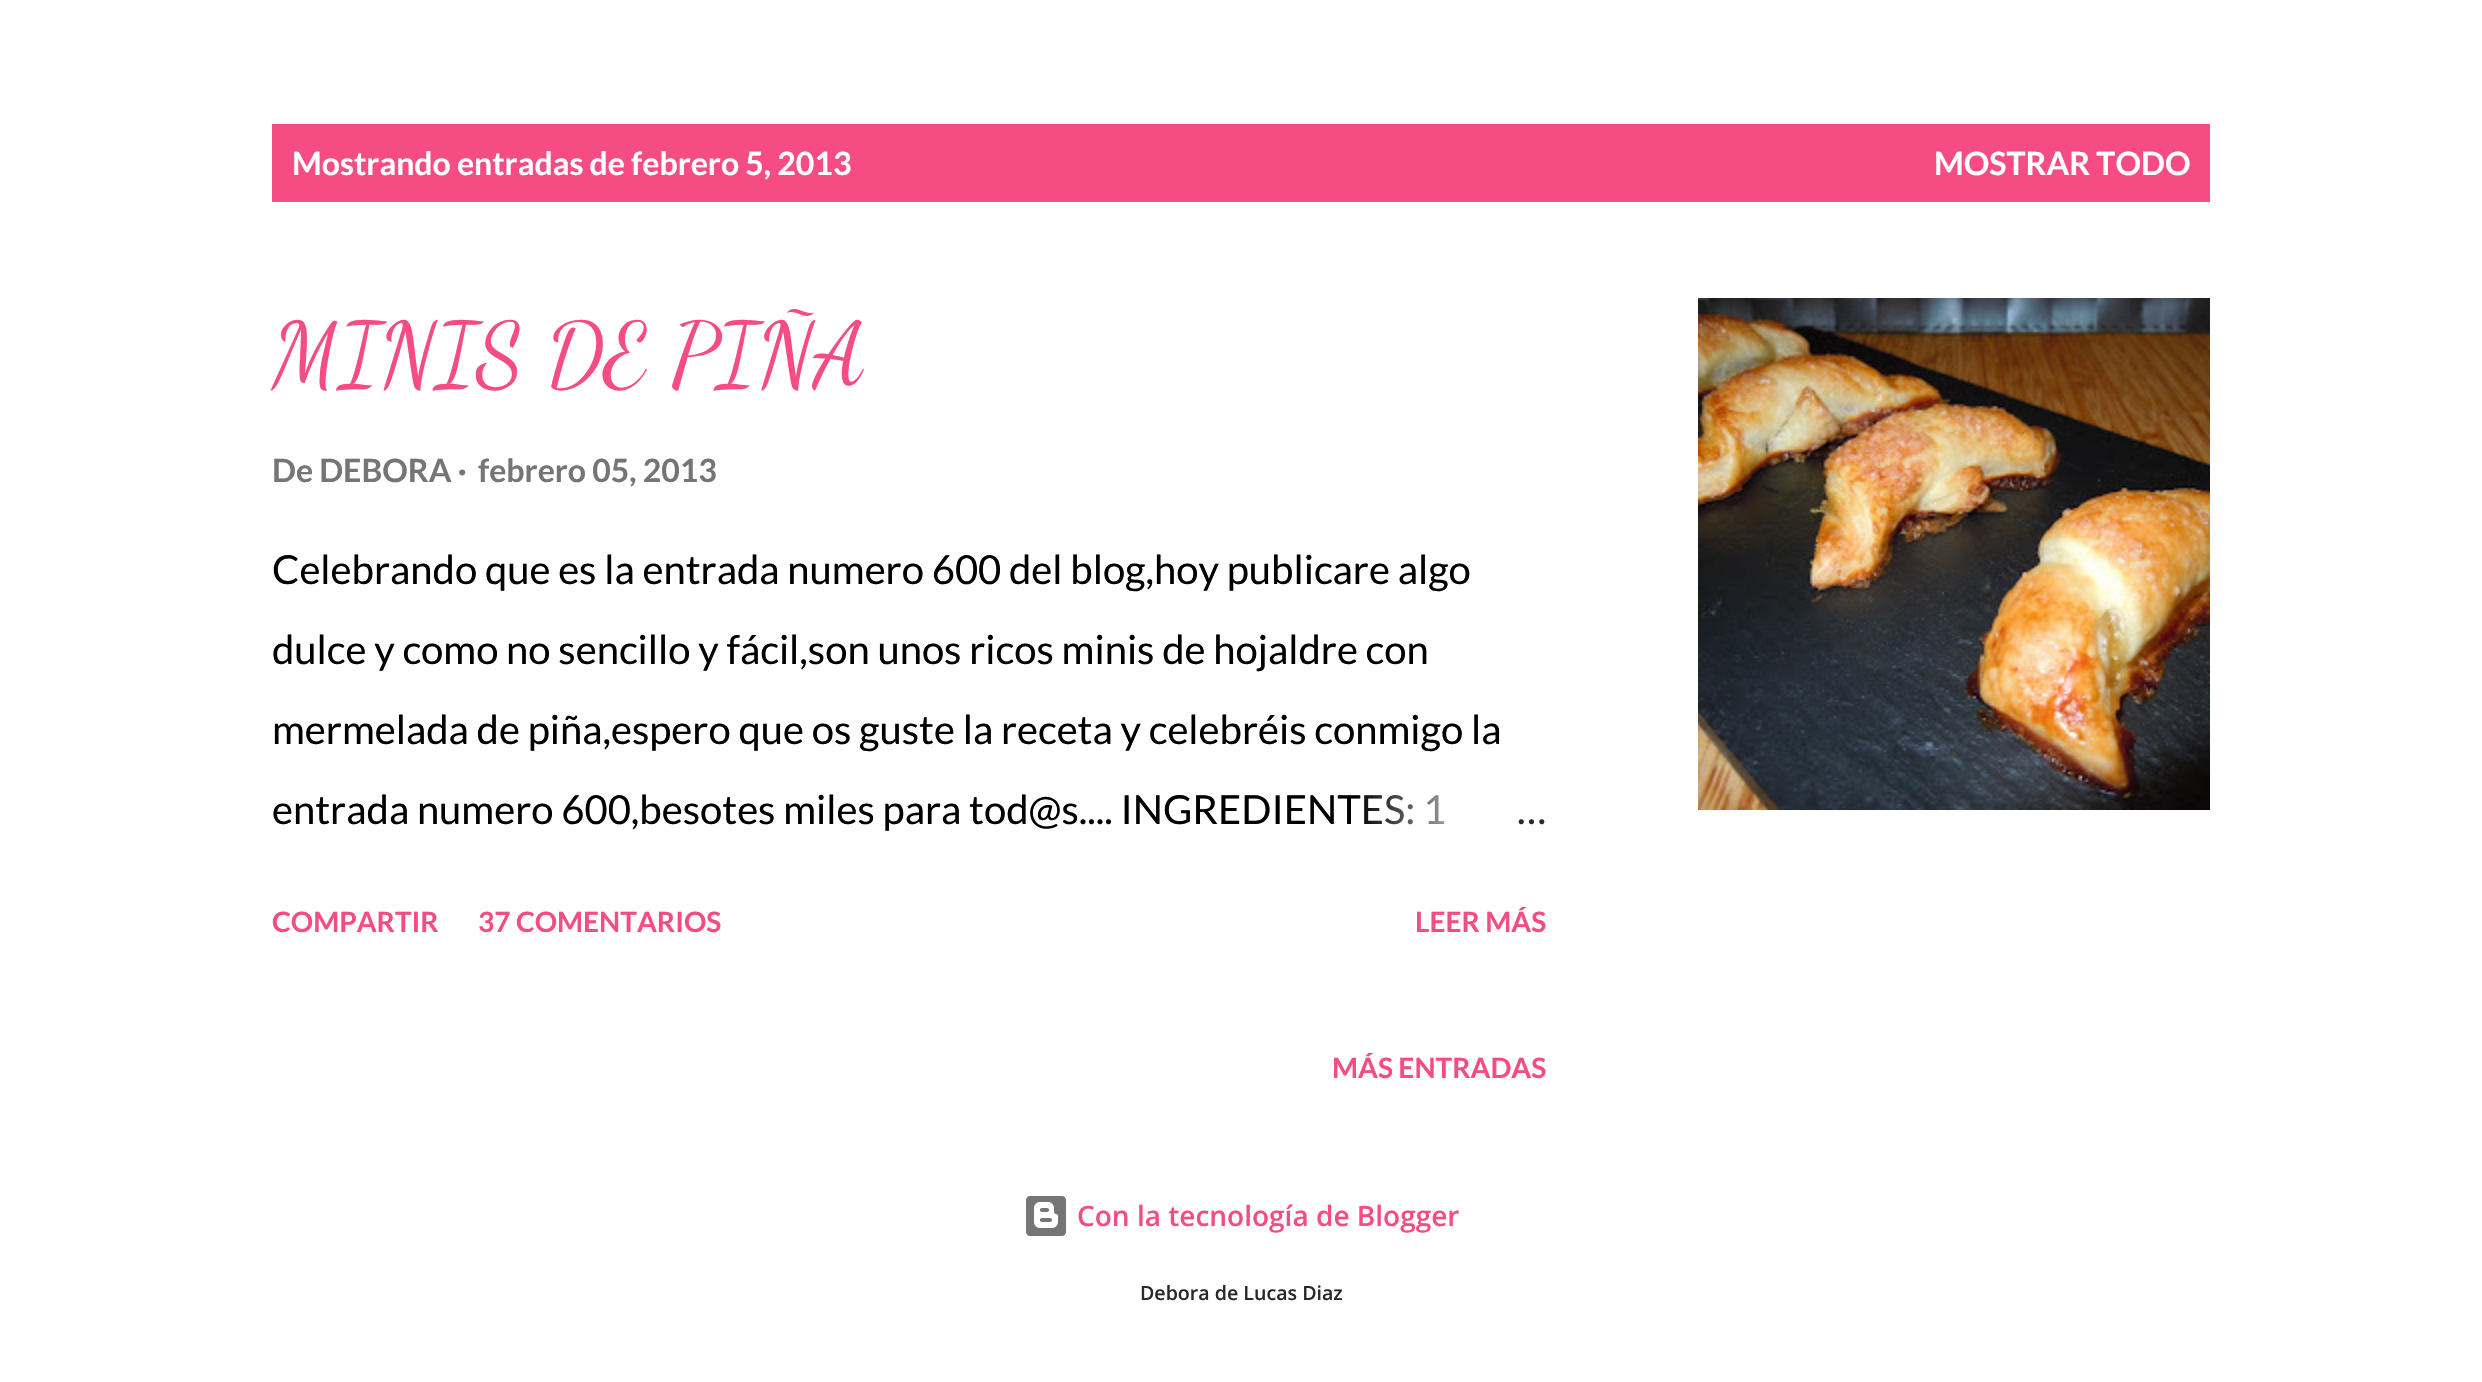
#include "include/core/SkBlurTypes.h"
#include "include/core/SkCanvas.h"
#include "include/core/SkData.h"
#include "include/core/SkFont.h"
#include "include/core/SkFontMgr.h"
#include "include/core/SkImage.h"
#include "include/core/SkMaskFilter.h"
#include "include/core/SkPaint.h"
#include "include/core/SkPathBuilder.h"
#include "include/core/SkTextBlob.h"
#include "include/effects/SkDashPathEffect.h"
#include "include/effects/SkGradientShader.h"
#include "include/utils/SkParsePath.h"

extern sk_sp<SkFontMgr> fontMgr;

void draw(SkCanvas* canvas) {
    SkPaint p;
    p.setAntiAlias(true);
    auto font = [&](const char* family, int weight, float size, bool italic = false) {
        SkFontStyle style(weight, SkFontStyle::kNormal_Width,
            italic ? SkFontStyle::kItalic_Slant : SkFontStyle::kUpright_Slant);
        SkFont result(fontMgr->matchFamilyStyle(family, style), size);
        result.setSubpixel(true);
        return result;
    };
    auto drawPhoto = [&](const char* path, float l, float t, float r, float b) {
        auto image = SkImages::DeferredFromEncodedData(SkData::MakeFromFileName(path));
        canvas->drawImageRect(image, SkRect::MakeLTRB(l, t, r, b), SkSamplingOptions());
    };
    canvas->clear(0xFFFFFFFF);
    p.setColor(0xFFF44C83);
    canvas->drawRect(SkRect::MakeLTRB(272, 124, 2210, 202), p);
    auto font1 = font("Lato", 700, 32);
    p.setColor(0xFFFFFFFF);
    canvas->drawString("Mostrando entradas de febrero 5, 2013", 292, 175, font1, p);
    canvas->drawString("MOSTRAR TODO", 1934, 175, font1, p);
    auto font2 = font("Dancing Script", 400, 88);
    p.setColor(0xFFF44C83);
    canvas->drawString("MINIS DE PIÑA", 272, 383, font2, p);
    p.setColor(0xFF757575);
    canvas->drawString("De DEBORA ·", 272, 482, font1, p);
    canvas->drawString("febrero 05, 2013", 478, 482, font1, p);
    auto font3 = font("Lato", 400, 40);
    p.setColor(0xFF000000);
    {
        const struct { const char* s; float x, y; } items[] = {
            {"Celebrando que es la entrada numero 600 del blog,hoy publicare algo", 272, 584},
            {"dulce y como no sencillo y fácil,son unos ricos minis de hojaldre con", 272, 664},
            {"mermelada de piña,espero que os guste la receta y celebréis conmigo la", 272, 744},
            {"entrada numero 600,besotes miles para tod@s.... INGREDIENTES: 1", 272, 824},
        };
        for (auto [s, x, y] : items) {
            canvas->drawString(s, x, y, font3, p);
        }
    }
    {
        const SkColor colors[] = {0xFFFFFFFF, 0xFFFFFFFF, 0x00FFFFFF};
        const float stops[] = {0, 0.2f, 1};
        const SkPoint ends[] = {{1546, 808}, {1354, 808}};
        p.setShader(SkGradientShader::MakeLinear(ends, colors, stops, 3, SkTileMode::kClamp));
        p.setAlpha(255);
    }
    canvas->drawRect(SkRect::MakeLTRB(1357, 795, 1445, 825), p);
    p.setShader(nullptr);
    p.setColor(0xFF292929);
    canvas->drawString("…", 1517, 824, font3, p);
    auto font4 = font("Lato", 700, 28);
    p.setColor(0xFFF44C83);
    {
        const struct { const char* s; float x, y; } items[] = {
            {"COMPARTIR", 272, 932},
            {"37 COMENTARIOS", 478, 932},
            {"LEER MÁS", 1415, 932},
        };
        for (auto [s, x, y] : items) {
            canvas->drawString(s, x, y, font4, p);
        }
    }
    drawPhoto("media/1.png", 1698, 298, 2210, 810);
    canvas->drawString("MÁS ENTRADAS", 1332, 1078, font4, p);
    drawPhoto("media/2.png", 1026, 1196, 1066, 1236);
    auto font5 = font("Open Sans", 600, 28);
    canvas->drawString("Con la tecnología de Blogger", 1077, 1226, font5, p);
    auto font6 = font("Open Sans", 600, 19.6f);
    p.setColor(0xFF292929);
    canvas->drawString("Debora de Lucas Diaz", 1140, 1300, font6, p);
}
